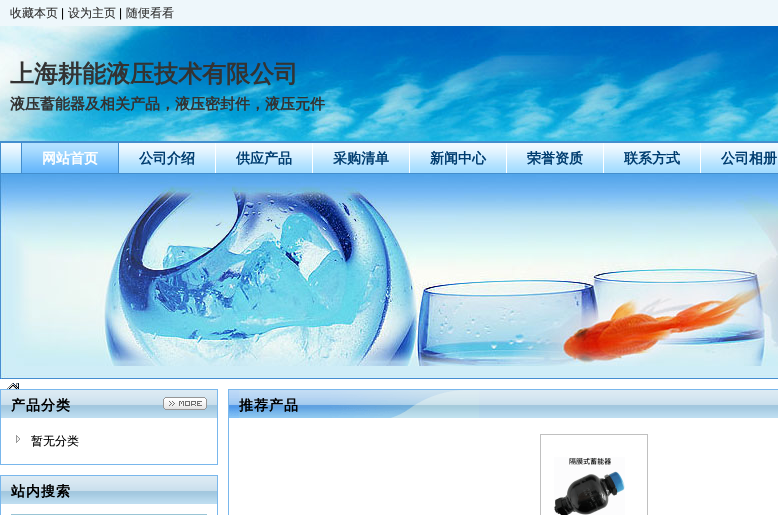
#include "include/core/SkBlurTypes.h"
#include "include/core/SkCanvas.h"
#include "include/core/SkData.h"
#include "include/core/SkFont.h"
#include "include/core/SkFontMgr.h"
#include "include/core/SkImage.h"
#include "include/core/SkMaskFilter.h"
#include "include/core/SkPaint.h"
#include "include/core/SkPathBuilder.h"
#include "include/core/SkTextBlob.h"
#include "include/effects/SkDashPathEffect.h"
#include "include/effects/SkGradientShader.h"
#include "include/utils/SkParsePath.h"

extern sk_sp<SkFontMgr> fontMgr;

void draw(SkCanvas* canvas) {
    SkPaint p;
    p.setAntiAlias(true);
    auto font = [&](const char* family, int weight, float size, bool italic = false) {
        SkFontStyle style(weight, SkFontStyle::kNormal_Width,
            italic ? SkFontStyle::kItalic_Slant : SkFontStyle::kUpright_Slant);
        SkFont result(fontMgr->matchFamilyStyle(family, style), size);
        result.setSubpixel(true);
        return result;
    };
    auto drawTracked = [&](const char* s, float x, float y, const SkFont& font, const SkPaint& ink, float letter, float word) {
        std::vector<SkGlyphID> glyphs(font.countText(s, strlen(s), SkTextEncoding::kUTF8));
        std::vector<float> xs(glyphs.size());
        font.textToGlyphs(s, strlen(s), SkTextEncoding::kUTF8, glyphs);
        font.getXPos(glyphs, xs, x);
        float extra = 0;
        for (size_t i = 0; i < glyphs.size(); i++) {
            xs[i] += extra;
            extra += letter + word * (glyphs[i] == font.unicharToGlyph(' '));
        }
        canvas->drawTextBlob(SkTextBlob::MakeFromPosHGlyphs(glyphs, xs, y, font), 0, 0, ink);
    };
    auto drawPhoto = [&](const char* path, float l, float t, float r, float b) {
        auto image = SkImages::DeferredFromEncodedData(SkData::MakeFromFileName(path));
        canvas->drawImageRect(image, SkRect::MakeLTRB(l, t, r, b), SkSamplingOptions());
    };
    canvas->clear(0xFFFFFFFF);
    drawPhoto("media/1.png", 0, 26, 778, 141);
    p.setColor(0xFFEEF7FB);
    canvas->drawRect(SkRect::MakeLTRB(0, 0, 778, 26), p);
    auto font1 = font("WenQuanYi Zen Hei", 500, 12);
    p.setColor(0xFF333333);
    canvas->drawString("收藏本页", 10, 17, font1, p);
    auto font2 = font("Liberation Sans", 400, 12);
    p.setColor(0xFF000000);
    canvas->drawString("|", 61, 17, font2, p);
    p.setColor(0xFF333333);
    canvas->drawString("设为主页", 68, 17, font1, p);
    p.setColor(0xFF000000);
    canvas->drawString("|", 119, 17, font2, p);
    p.setColor(0xFF333333);
    canvas->drawString("随便看看", 126, 17, font1, p);
    auto font3 = font("WenQuanYi Zen Hei", 700, 24);
    canvas->drawString("上海耕能液压技术有限公司", 10, 82, font3, p);
    auto font4 = font("WenQuanYi Zen Hei", 700, 15);
    canvas->drawString("液压蓄能器及相关产品，液压密封件，液压元件", 10, 109, font4, p);
    drawPhoto("media/2.png", 1, 143, 778, 173);
    {
        const struct { float l, t, r, b; SkColor color; } items[] = {
            {0, 141, 778, 143, 0xFF438ECE},
            {0, 173, 778, 174, 0xFF438ECE},
            {0, 141, 1, 174, 0xFF438ECE},
        };
        for (auto [l, t, r, b, color] : items) {
            p.setColor(color);
            canvas->drawRect(SkRect::MakeLTRB(l, t, r, b), p);
        }
    }
    drawPhoto("media/3.png", 22, 143, 118, 173);
    canvas->drawRect(SkRect::MakeLTRB(118, 143, 119, 173), p);
    canvas->drawRect(SkRect::MakeLTRB(21, 143, 22, 173), p);
    auto font5 = font("WenQuanYi Zen Hei", 700, 14);
    p.setColor(0xFFFFFFFF);
    canvas->drawString("网站首页", 42, 163, font5, p);
    canvas->drawRect(SkRect::MakeLTRB(215, 143, 216, 173), p);
    p.setColor(0xFF003D70);
    canvas->drawString("公司介绍", 139, 163, font5, p);
    p.setColor(0xFFFFFFFF);
    canvas->drawRect(SkRect::MakeLTRB(312, 143, 313, 173), p);
    p.setColor(0xFF003D70);
    canvas->drawString("供应产品", 236, 163, font5, p);
    p.setColor(0xFFFFFFFF);
    canvas->drawRect(SkRect::MakeLTRB(409, 143, 410, 173), p);
    p.setColor(0xFF003D70);
    canvas->drawString("采购清单", 333, 163, font5, p);
    p.setColor(0xFFFFFFFF);
    canvas->drawRect(SkRect::MakeLTRB(506, 143, 507, 173), p);
    p.setColor(0xFF003D70);
    canvas->drawString("新闻中心", 430, 163, font5, p);
    p.setColor(0xFFFFFFFF);
    canvas->drawRect(SkRect::MakeLTRB(603, 143, 604, 173), p);
    p.setColor(0xFF003D70);
    canvas->drawString("荣誉资质", 527, 163, font5, p);
    p.setColor(0xFFFFFFFF);
    canvas->drawRect(SkRect::MakeLTRB(700, 143, 701, 173), p);
    p.setColor(0xFF003D70);
    canvas->drawString("联系方式", 624, 163, font5, p);
    canvas->drawString("公司相册", 721, 163, font5, p);
    drawPhoto("media/4.png", 0, 174, 778, 379);
    drawPhoto("media/5.png", 7, 383, 19, 389);
    drawPhoto("media/6.png", 1, 390, 217, 418);
    {
        const struct { float l, t, r, b; SkColor color; } items[] = {
            {0, 389, 218, 390, 0xFF79B7EC},
            {217, 389, 218, 465, 0xFF79B7EC},
            {0, 389, 1, 418, 0xFF79B7EC},
        };
        for (auto [l, t, r, b, color] : items) {
            p.setColor(color);
            canvas->drawRect(SkRect::MakeLTRB(l, t, r, b), p);
        }
    }
    p.setColor(0xFF000000);
    drawTracked("产品分类", 11, 410, font5, p, 1, 0);
    drawPhoto("media/7.png", 163, 397, 207, 410);
    p.setColor(0xFF79B7EC);
    canvas->drawRect(SkRect::MakeLTRB(0, 464, 218, 465), p);
    canvas->drawRect(SkRect::MakeLTRB(0, 418, 1, 465), p);
    drawPhoto("media/8.png", 16, 435, 20, 443);
    p.setColor(0xFF000000);
    canvas->drawString("暂无分类", 31, 445, font1, p);
    drawPhoto("media/6.png", 1, 476, 217, 504);
    {
        const struct { float l, t, r, b; SkColor color; } items[] = {
            {0, 475, 218, 476, 0xFF79B7EC},
            {217, 475, 218, 515, 0xFF79B7EC},
            {0, 475, 1, 515, 0xFF79B7EC},
        };
        for (auto [l, t, r, b, color] : items) {
            p.setColor(color);
            canvas->drawRect(SkRect::MakeLTRB(l, t, r, b), p);
        }
    }
    p.setColor(0xFF000000);
    drawTracked("站内搜索", 11, 496, font5, p, 1, 0);
    p.setStyle(SkPaint::kStroke_Style);
    p.setStrokeWidth(1);
    p.setColor(0xFF99C4D5);
    canvas->drawRect(SkRect::MakeLTRB(11.5f, 514.5f, 206.5f, 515.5f), p);
    drawPhoto("media/9.png", 229, 390, 778, 418);
    p.setStyle(SkPaint::kFill_Style);
    p.setColor(0xFF79B7EC);
    canvas->drawRect(SkRect::MakeLTRB(228, 389, 778, 390), p);
    canvas->drawRect(SkRect::MakeLTRB(228, 389, 229, 515), p);
    p.setColor(0xFF000000);
    drawTracked("推荐产品", 239, 410, font5, p, 1, 0);
    p.setStyle(SkPaint::kStroke_Style);
    p.setColor(0xFFC0C0C0);
    canvas->drawRect(SkRect::MakeLTRB(540.5f, 434.5f, 647.5f, 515.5f), p);
    drawPhoto("media/10.png", 554, 457, 625, 515);
}
